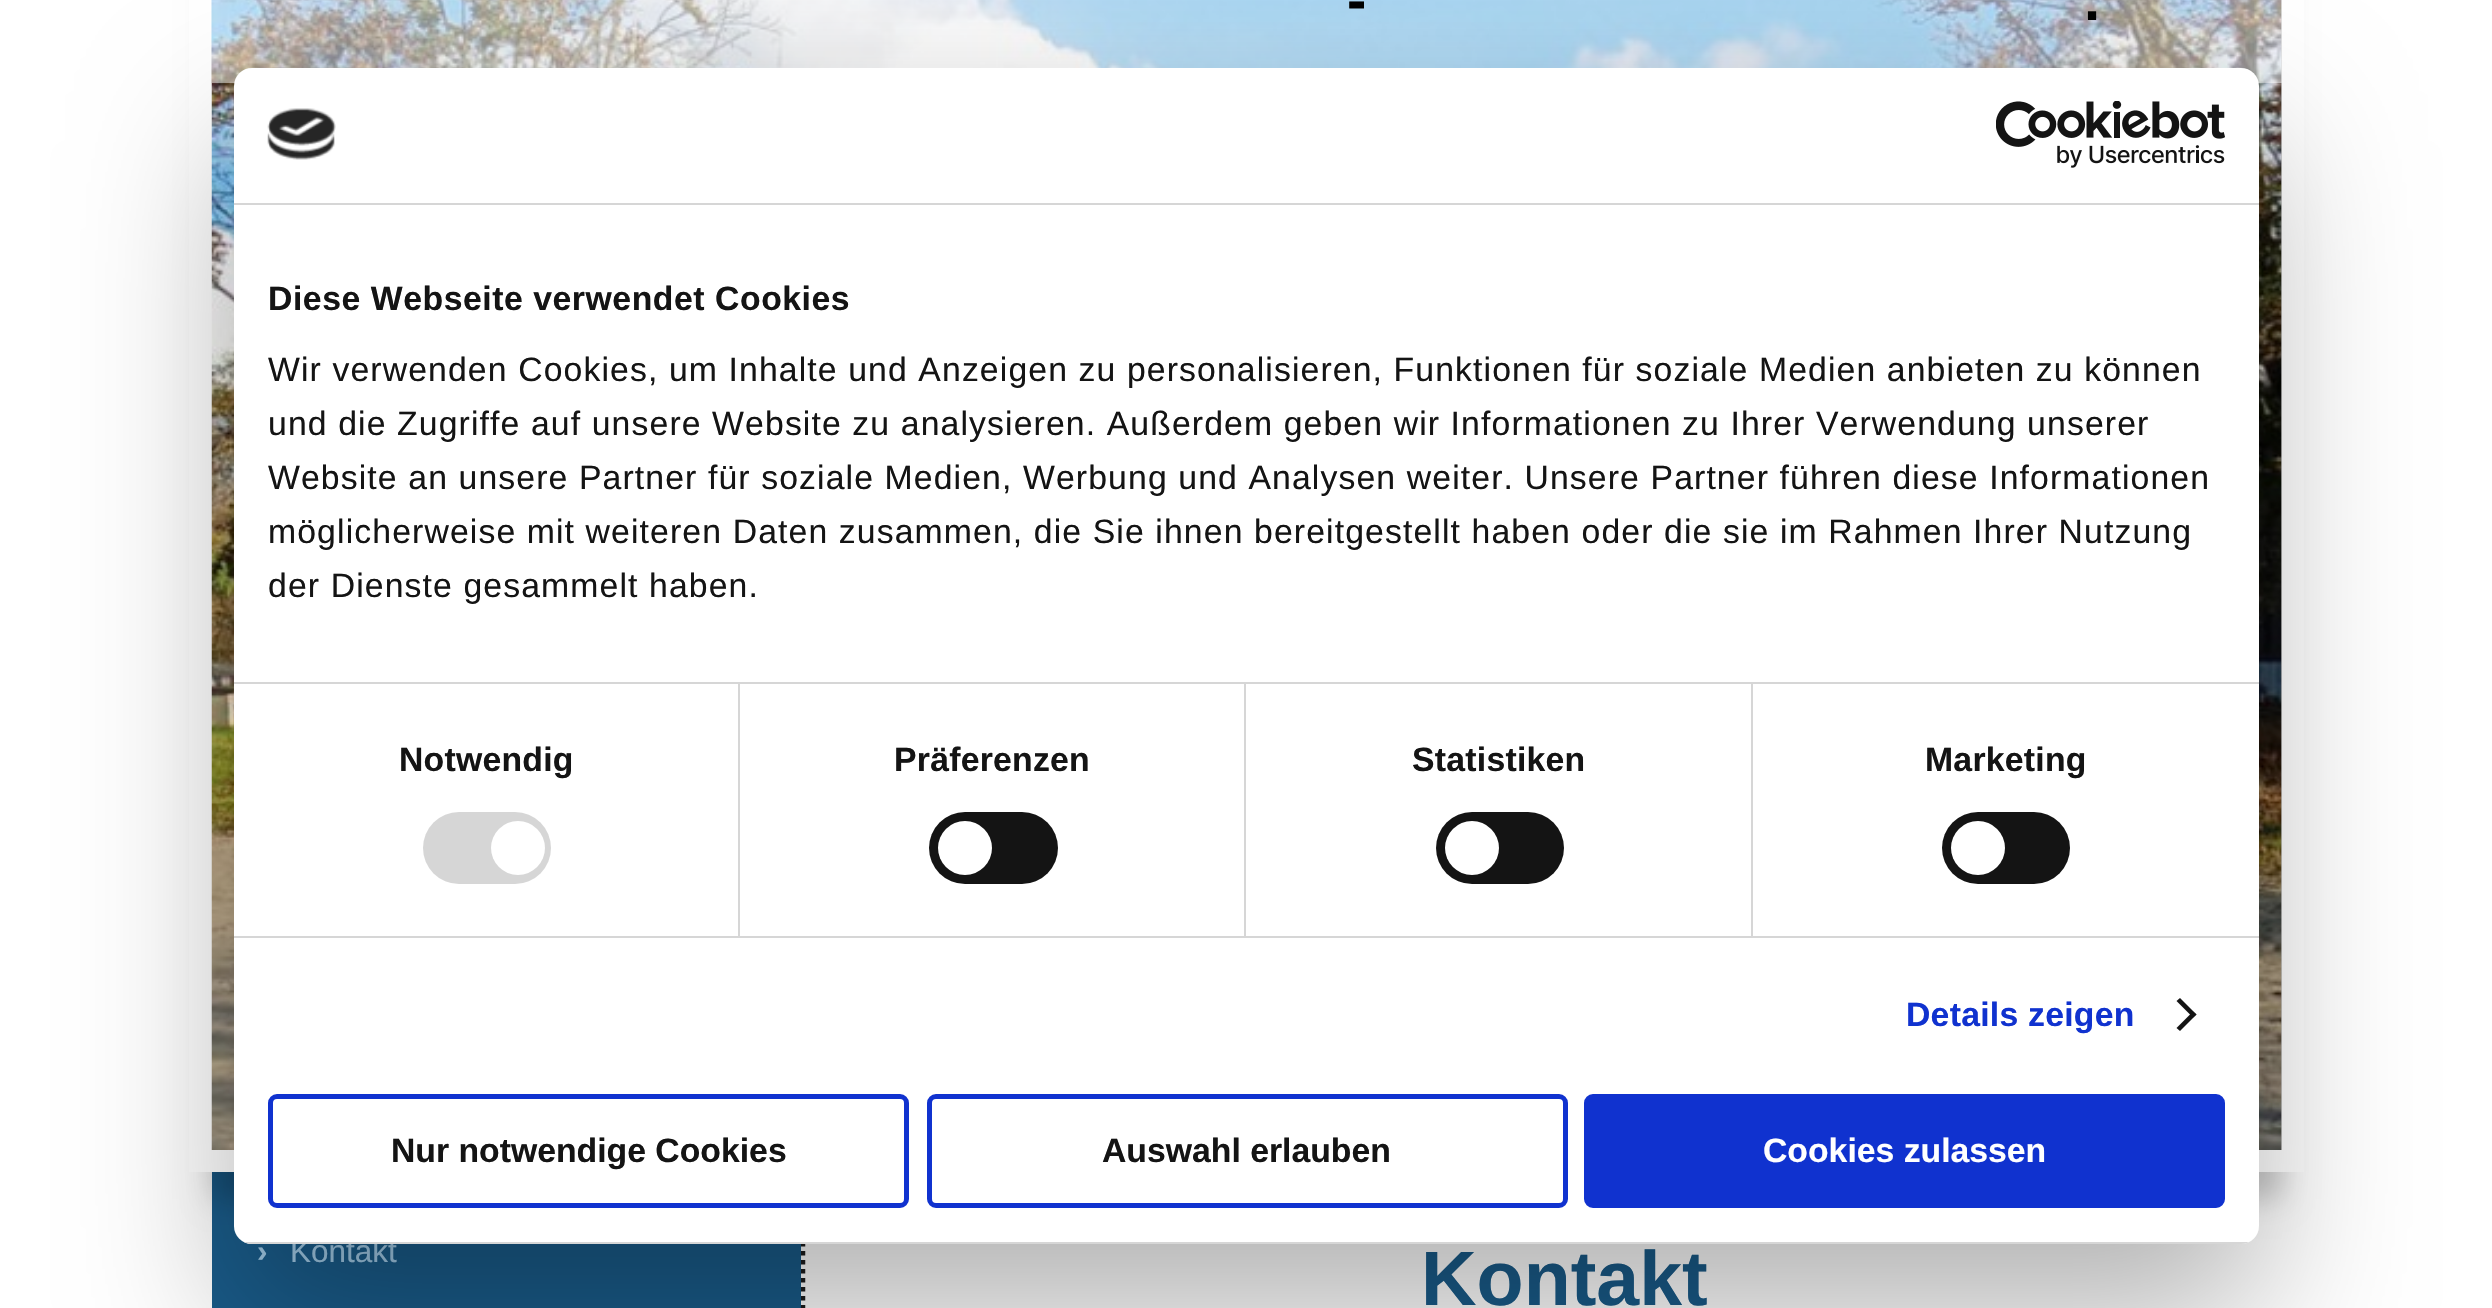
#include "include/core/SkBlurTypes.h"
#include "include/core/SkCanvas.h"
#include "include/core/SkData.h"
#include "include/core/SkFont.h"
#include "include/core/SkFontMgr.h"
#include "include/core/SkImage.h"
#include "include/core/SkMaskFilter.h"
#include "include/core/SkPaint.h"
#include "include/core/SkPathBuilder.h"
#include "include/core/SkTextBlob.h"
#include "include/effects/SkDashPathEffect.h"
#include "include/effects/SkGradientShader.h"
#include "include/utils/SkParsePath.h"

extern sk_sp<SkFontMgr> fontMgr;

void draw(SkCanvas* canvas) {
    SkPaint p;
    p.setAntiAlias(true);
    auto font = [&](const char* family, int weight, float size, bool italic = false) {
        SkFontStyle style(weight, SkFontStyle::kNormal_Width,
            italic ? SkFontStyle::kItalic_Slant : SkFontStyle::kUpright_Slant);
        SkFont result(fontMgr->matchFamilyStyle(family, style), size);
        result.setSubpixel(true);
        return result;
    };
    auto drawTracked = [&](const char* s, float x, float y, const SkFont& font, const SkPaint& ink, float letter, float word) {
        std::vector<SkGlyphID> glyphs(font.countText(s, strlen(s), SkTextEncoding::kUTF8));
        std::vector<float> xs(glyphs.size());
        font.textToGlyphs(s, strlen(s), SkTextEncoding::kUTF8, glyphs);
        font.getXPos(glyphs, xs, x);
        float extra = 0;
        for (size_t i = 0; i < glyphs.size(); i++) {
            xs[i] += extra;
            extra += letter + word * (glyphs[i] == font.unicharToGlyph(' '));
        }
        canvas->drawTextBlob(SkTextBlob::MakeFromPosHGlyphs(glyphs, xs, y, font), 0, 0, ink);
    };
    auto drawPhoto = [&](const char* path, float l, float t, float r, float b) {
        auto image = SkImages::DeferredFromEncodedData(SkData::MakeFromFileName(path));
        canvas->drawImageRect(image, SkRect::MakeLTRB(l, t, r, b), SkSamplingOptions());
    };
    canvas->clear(0xFFFFFFFF);
    p.setStyle(SkPaint::kStroke_Style);
    p.setStrokeWidth(4.5f);
    p.setColor(0xFF1C1C1C);
    p.setPathEffect(SkDashPathEffect::Make({{4.5f, 4.5f}}, 0));
    canvas->drawPath(SkPathBuilder().moveTo(803, 1206).lineTo(803, 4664).detach(), p);
    p.setPathEffect(nullptr);
    p.setStyle(SkPaint::kFill_Style);
    p.setColor(0xFF195B89);
    canvas->drawRect(SkRect::MakeLTRB(212, 1172, 801, 1308), p);
    p.setColor(0x33000000);
    p.setMaskFilter(SkMaskFilter::MakeBlur(kNormal_SkBlurStyle, 13.5f));
    canvas->drawRect(SkRect::MakeLTRB(212, -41, 2282, 1199), p);
    p.setMaskFilter(nullptr);
    p.setStyle(SkPaint::kStroke_Style);
    p.setStrokeWidth(23);
    p.setColor(0xFFFFFFFF);
    canvas->drawRect(SkRect::MakeLTRB(200.5f, -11.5f, 2292.5f, 1160.5f), p);
    p.setStyle(SkPaint::kFill_Style);
    p.setColor(0xFFCCCCCC);
    canvas->drawRect(SkRect::MakeLTRB(2281, 0, 2282, 1150), p);
    drawPhoto("media/1.png", 211, 0, 2282, 1150);
    p.setColor(0x80FFFFFF);
    canvas->drawRect(SkRect::MakeLTRB(212, 0, 2282, 83), p);
    auto font1 = font("Liberation Sans", 700, 58);
    p.setColor(0xFF000000);
    canvas->drawString("-", 1347, 20, font1, p);
    canvas->drawString(".", 2084, 20, font1, p);
    auto font2 = font("Liberation Sans", 700, 31.5f);
    p.setColor(0xFFA1CAE6);
    canvas->drawString("›", 257, 1262, font2, p);
    auto font3 = font("Liberation Sans", 400, 31.5f);
    canvas->drawString("Kontakt", 290, 1262, font3, p);
    auto font4 = font("Liberation Sans", 700, 77);
    p.setColor(0xFF195B89);
    canvas->drawString("Kontakt", 1421, 1305, font4, p);
    p.setColor(0x4D000000);
    p.setMaskFilter(SkMaskFilter::MakeBlur(kNormal_SkBlurStyle, 76.5f));
    canvas->drawRoundRect(SkRect::MakeLTRB(234, 140, 2259, 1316), 18, 18, p);
    p.setMaskFilter(nullptr);
    p.setColor(0xFFFFFFFF);
    canvas->drawRoundRect(SkRect::MakeLTRB(234, 68, 2259, 1244), 18, 18, p);
    p.setColor(0xFFD6D6D6);
    canvas->drawRect(SkRect::MakeLTRB(234, 203, 2259, 205), p);
    drawPhoto("media/2.png", 267, 108, 336, 160);
    drawPhoto("media/3.png", 1996, 101, 2225, 168);
    canvas->drawRect(SkRect::MakeLTRB(234, 682, 2259, 684), p);
    auto font5 = font("Liberation Sans", 700, 33.75f);
    p.setColor(0xFF141414);
    drawTracked("Diese Webseite verwendet Cookies", 268, 310, font5, p, 0.55f, 0);
    auto font6 = font("Liberation Sans", 400, 33.75f);
    {
        const struct { const char* s; float x, y; } items[] = {
            {"Wir verwenden Cookies, um Inhalte und Anzeigen zu personalisieren, Funktionen für soziale Medien anbieten zu können", 268, 381},
            {"und die Zugriffe auf unsere Website zu analysieren. Außerdem geben wir Informationen zu Ihrer Verwendung unserer", 268, 435},
            {"Website an unsere Partner für soziale Medien, Werbung und Analysen weiter. Unsere Partner führen diese Informationen", 268, 489},
            {"möglicherweise mit weiteren Daten zusammen, die Sie ihnen bereitgestellt haben oder die sie im Rahmen Ihrer Nutzung", 268, 543},
            {"der Dienste gesammelt haben.", 268, 597},
        };
        for (auto [s, x, y] : items) {
            drawTracked(s, x, y, font6, p, 1.12f, 0);
        }
    }
    p.setColor(0xFFD6D6D6);
    canvas->drawRect(SkRect::MakeLTRB(234, 936, 2259, 938), p);
    canvas->drawRect(SkRect::MakeLTRB(738, 684, 740, 936), p);
    p.setColor(0xFF141414);
    drawTracked("Notwendig", 399, 771, font5, p, 0.25f, 0);
    p.setColor(0xFFD6D6D6);
    canvas->drawRoundRect(SkRect::MakeLTRB(423, 812, 551, 884), 36, 36, p);
    p.setColor(0xFFFFFFFF);
    canvas->drawCircle(518, 848, 27, p);
    p.setColor(0xFFD6D6D6);
    canvas->drawRect(SkRect::MakeLTRB(1244, 684, 1246, 936), p);
    p.setColor(0xFF141414);
    drawTracked("Präferenzen", 894, 771, font5, p, 0.25f, 0);
    canvas->drawRoundRect(SkRect::MakeLTRB(929, 812, 1058, 884), 36, 36, p);
    p.setColor(0xFFFFFFFF);
    canvas->drawCircle(965, 848, 27, p);
    p.setColor(0xFFD6D6D6);
    canvas->drawRect(SkRect::MakeLTRB(1751, 684, 1753, 936), p);
    p.setColor(0xFF141414);
    drawTracked("Statistiken", 1412, 771, font5, p, 0.25f, 0);
    canvas->drawRoundRect(SkRect::MakeLTRB(1436, 812, 1564, 884), 36, 36, p);
    p.setColor(0xFFFFFFFF);
    canvas->drawCircle(1472, 848, 27, p);
    p.setColor(0xFF141414);
    drawTracked("Marketing", 1925, 771, font5, p, 0.25f, 0);
    canvas->drawRoundRect(SkRect::MakeLTRB(1942, 812, 2070, 884), 36, 36, p);
    p.setColor(0xFFFFFFFF);
    canvas->drawCircle(1978, 848, 27, p);
    p.setColor(0xFF1032CF);
    drawTracked("Details zeigen", 1906, 1026, font5, p, 0.25f, 0);
    p.setColor(0xFF141414);
    canvas->drawPath(SkPathBuilder().moveTo(2180, 998).lineTo(2196.5f, 1014.5f).lineTo(2193, 1017.5f).lineTo(2176.5f, 1001).close().detach(), p);
    canvas->drawPath(SkPathBuilder().moveTo(2193, 1011.5f).lineTo(2196.5f, 1014.5f).lineTo(2180, 1031).lineTo(2176.5f, 1028).close().detach(), p);
    canvas->save();
    canvas->clipPath(SkPathBuilder().moveTo(252, 68).lineTo(2241, 68).cubicTo(2251, 68, 2259, 76, 2259, 86).lineTo(2259, 1226).cubicTo(2259, 1236, 2251, 1244, 2241, 1244).lineTo(252, 1244).cubicTo(242, 1244, 234, 1236, 234, 1226).lineTo(234, 86).cubicTo(234, 76, 242, 68, 252, 68).close().detach(), true);
    p.setColor(0xFFD6D6D6);
    canvas->drawRect(SkRect::MakeLTRB(244, 1242, 2249, 1244), p);
    canvas->restore();
    p.setStyle(SkPaint::kStroke_Style);
    p.setStrokeWidth(5);
    p.setColor(0xFF1032CF);
    canvas->drawRoundRect(SkRect::MakeLTRB(270.5f, 1096.5f, 906.5f, 1205.5f), 6.5f, 6.5f, p);
    p.setStyle(SkPaint::kFill_Style);
    p.setColor(0xFF141414);
    canvas->drawString("Nur notwendige Cookies", 391, 1162, font5, p);
    p.setStyle(SkPaint::kStroke_Style);
    p.setColor(0xFF1032CF);
    canvas->drawRoundRect(SkRect::MakeLTRB(929.5f, 1096.5f, 1565.5f, 1205.5f), 6.5f, 6.5f, p);
    p.setStyle(SkPaint::kFill_Style);
    p.setColor(0xFF141414);
    canvas->drawString("Auswahl erlauben", 1102, 1162, font5, p);
    p.setColor(0xFF1032CF);
    canvas->drawRoundRect(SkRect::MakeLTRB(1586.5f, 1096.5f, 2222.5f, 1205.5f), 6.5f, 6.5f, p);
    p.setStyle(SkPaint::kStroke_Style);
    canvas->drawRoundRect(SkRect::MakeLTRB(1586.5f, 1096.5f, 2222.5f, 1205.5f), 6.5f, 6.5f, p);
    p.setStyle(SkPaint::kFill_Style);
    p.setColor(0xFFFFFFFF);
    canvas->drawString("Cookies zulassen", 1763, 1162, font5, p);
}
